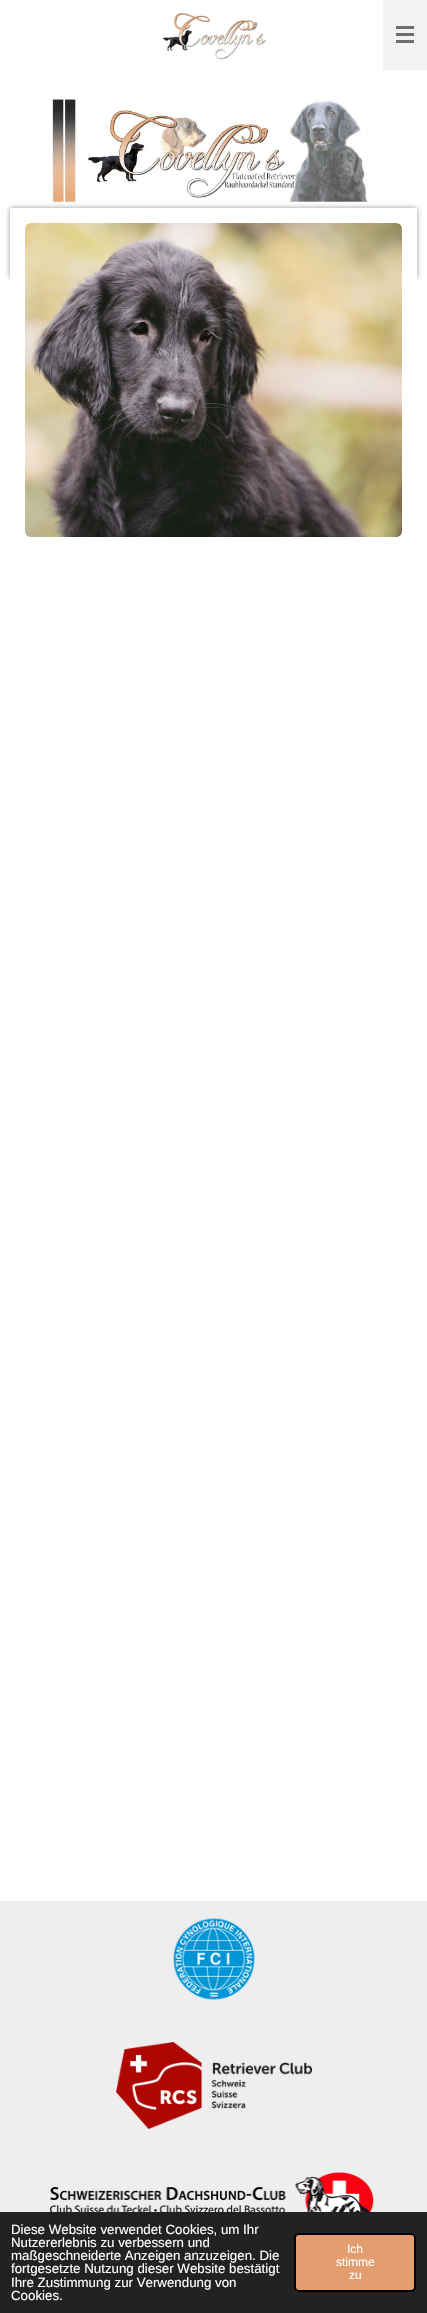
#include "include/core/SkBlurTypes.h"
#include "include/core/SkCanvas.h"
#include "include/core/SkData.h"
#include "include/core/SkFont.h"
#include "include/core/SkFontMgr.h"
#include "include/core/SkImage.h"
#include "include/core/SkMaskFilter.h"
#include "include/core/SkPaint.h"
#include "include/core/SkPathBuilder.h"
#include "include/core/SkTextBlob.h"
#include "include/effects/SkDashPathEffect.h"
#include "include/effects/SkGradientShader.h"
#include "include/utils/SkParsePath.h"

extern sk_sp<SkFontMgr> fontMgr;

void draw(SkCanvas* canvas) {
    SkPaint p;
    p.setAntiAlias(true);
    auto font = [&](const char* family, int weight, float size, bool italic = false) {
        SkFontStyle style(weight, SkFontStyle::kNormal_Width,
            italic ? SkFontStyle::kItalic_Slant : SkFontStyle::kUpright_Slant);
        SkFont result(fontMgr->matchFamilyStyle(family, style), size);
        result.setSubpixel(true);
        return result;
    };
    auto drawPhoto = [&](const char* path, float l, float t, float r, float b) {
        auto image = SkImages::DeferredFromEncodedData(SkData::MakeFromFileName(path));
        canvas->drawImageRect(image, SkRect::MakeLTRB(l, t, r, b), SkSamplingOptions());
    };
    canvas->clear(0xFFFFFFFF);
    drawPhoto("media/1.png", 162, 13, 266, 60);
    {
        const struct { float l, t, r, b; SkColor color; } items[] = {
            {383, 0, 427, 70, 0xFFF2F2F2},
            {396, 33, 414, 36, 0xFF6D6D6D},
            {396, 26, 414, 29, 0xFF6D6D6D},
            {396, 40, 414, 43, 0xFF6D6D6D},
        };
        for (auto [l, t, r, b, color] : items) {
            p.setColor(color);
            canvas->drawRect(SkRect::MakeLTRB(l, t, r, b), p);
        }
    }
    drawPhoto("media/2.png", 52, 99, 368, 203);
    p.setColor(0x66000000);
    p.setMaskFilter(SkMaskFilter::MakeBlur(kNormal_SkBlurStyle, 2.5f));
    canvas->drawRect(SkRect::MakeLTRB(10, 208, 417, 278), p);
    p.setMaskFilter(nullptr);
    p.setColor(0xFFFFFFFF);
    canvas->drawRect(SkRect::MakeLTRB(10, 208, 417, 283), p);
    drawPhoto("media/3.png", 25, 223, 402, 537);
    p.setColor(0xFFEEEEEE);
    canvas->drawRect(SkRect::MakeLTRB(0, 1901, 427, 2212), p);
    drawPhoto("media/4.png", 173, 1918, 255, 2001);
    drawPhoto("media/5.png", 116, 2042, 312, 2129);
    drawPhoto("media/6.png", 50, 2172, 374, 2212);
    p.setColor(0xFF222222);
    canvas->drawRect(SkRect::MakeLTRB(0, 2212, 427, 2313), p);
    auto font1 = font("Liberation Sans", 400, 13.3f);
    p.setColor(0xFFFFFFFF);
    {
        const struct { const char* s; float x, y; } items[] = {
            {"Diese Website verwendet Cookies, um Ihr", 11, 2234},
            {"Nutzererlebnis zu verbessern und", 11, 2247},
            {"maßgeschneiderte Anzeigen anzuzeigen. Die", 11, 2260},
            {"fortgesetzte Nutzung dieser Website bestätigt", 11, 2273},
            {"Ihre Zustimmung zur Verwendung von", 11, 2287},
            {"Cookies.", 11, 2300},
        };
        for (auto [s, x, y] : items) {
            canvas->drawString(s, x, y, font1, p);
        }
    }
    p.setColor(0xFFE39D6E);
    canvas->drawRoundRect(SkRect::MakeLTRB(295, 2234, 415, 2291), 4, 4, p);
    p.setStyle(SkPaint::kStroke_Style);
    p.setStrokeWidth(2);
    p.setColor(0xFF000000);
    canvas->drawRoundRect(SkRect::MakeLTRB(295, 2234, 415, 2291), 4, 4, p);
    auto font2 = font("Liberation Sans", 400, 12);
    p.setStyle(SkPaint::kFill_Style);
    p.setColor(0xFFFFFFFF);
    {
        const struct { const char* s; float x, y; } items[] = {
            {"Ich", 347, 2253},
            {"stimme", 336, 2266},
            {"zu", 349, 2279},
        };
        for (auto [s, x, y] : items) {
            canvas->drawString(s, x, y, font2, p);
        }
    }
}
